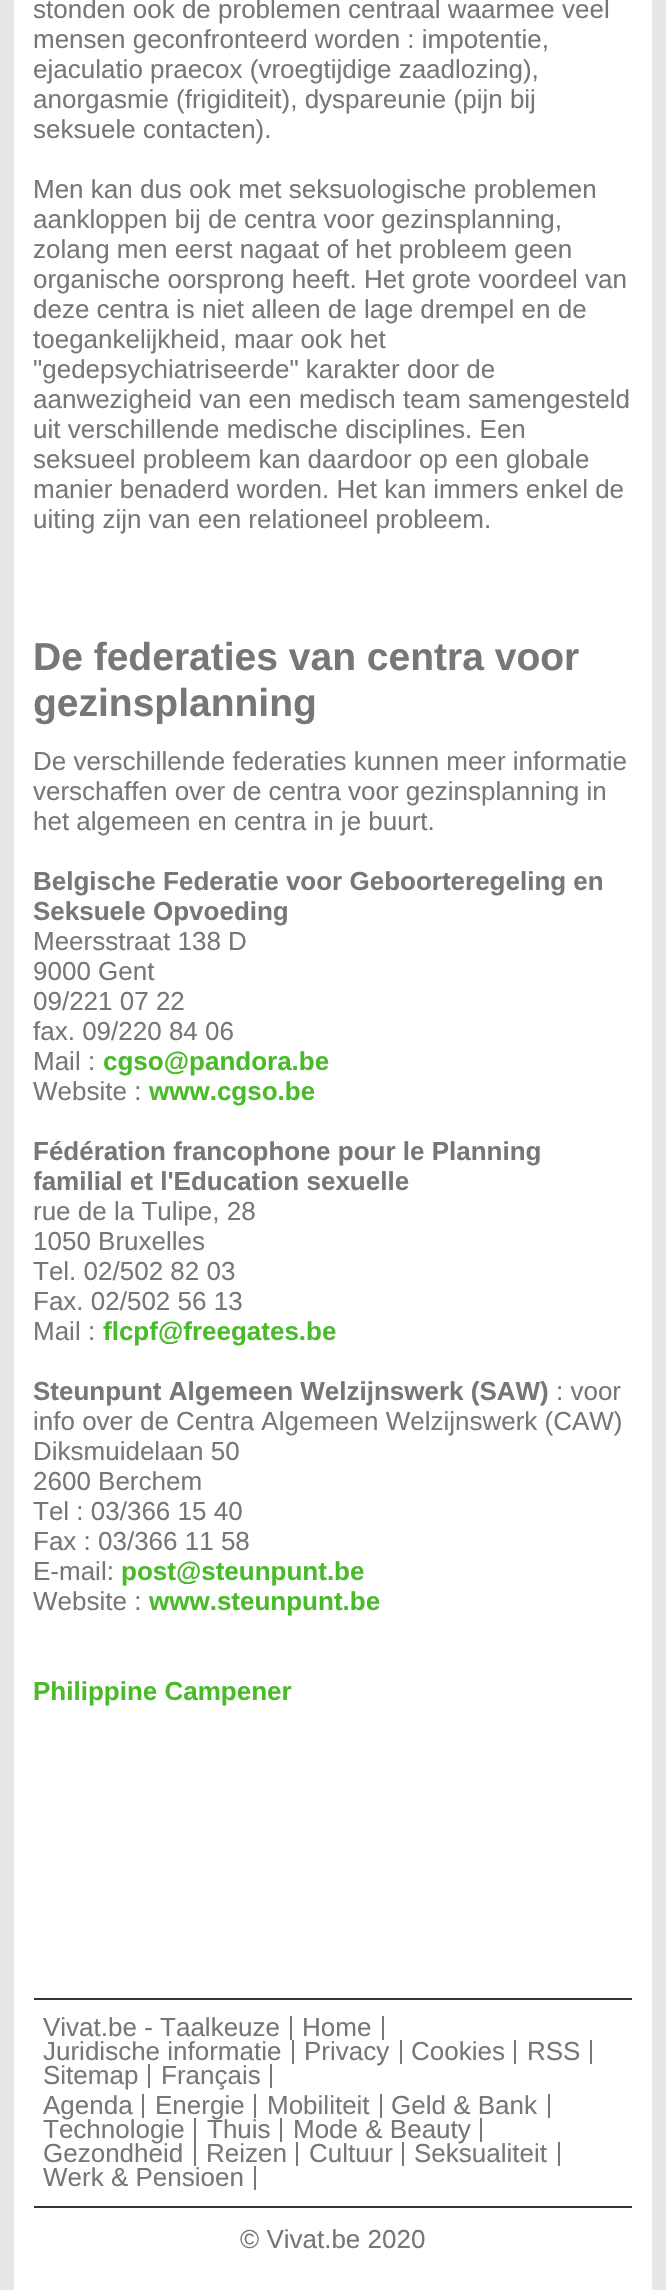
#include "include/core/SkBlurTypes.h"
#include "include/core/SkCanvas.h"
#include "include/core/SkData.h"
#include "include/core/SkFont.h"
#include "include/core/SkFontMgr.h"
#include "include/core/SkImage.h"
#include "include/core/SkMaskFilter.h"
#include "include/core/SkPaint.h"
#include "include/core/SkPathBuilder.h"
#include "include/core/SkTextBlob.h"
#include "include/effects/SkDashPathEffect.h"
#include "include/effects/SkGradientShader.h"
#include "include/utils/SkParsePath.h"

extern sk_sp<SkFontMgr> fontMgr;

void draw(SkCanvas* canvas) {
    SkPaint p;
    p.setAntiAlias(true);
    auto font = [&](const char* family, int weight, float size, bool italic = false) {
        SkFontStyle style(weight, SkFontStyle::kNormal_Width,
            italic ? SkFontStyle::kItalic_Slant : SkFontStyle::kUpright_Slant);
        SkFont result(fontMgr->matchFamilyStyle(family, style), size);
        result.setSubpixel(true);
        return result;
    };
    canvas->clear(0xFFE7E7E7);
    p.setColor(0xFFFFFFFF);
    canvas->drawRect(SkRect::MakeLTRB(14, 0, 652, 2290), p);
    auto font1 = font("Liberation Sans", 400, 26);
    p.setColor(0xFF777777);
    {
        const struct { const char* s; float x, y; } items[] = {
            {"stonden ook de problemen centraal waarmee veel", 33, 18},
            {"mensen geconfronteerd worden : impotentie,", 33, 48},
            {"ejaculatio praecox (vroegtijdige zaadlozing),", 33, 78},
            {"anorgasmie (frigiditeit), dyspareunie (pijn bij", 33, 108},
            {"seksuele contacten).", 33, 138},
            {"Men kan dus ook met seksuologische problemen", 33, 198},
            {"aankloppen bij de centra voor gezinsplanning,", 33, 228},
            {"zolang men eerst nagaat of het probleem geen", 33, 258},
            {"organische oorsprong heeft. Het grote voordeel van", 33, 288},
            {"deze centra is niet alleen de lage drempel en de", 33, 318},
            {"toegankelijkheid, maar ook het", 33, 348},
            {"\"gedepsychiatriseerde\" karakter door de", 33, 378},
            {"aanwezigheid van een medisch team samengesteld", 33, 408},
            {"uit verschillende medische disciplines. Een", 33, 438},
            {"seksueel probleem kan daardoor op een globale", 33, 468},
            {"manier benaderd worden. Het kan immers enkel de", 33, 498},
            {"uiting zijn van een relationeel probleem.", 33, 528},
        };
        for (auto [s, x, y] : items) {
            canvas->drawString(s, x, y, font1, p);
        }
    }
    auto font2 = font("Liberation Sans", 700, 39);
    canvas->drawString("De federaties van centra voor", 33, 670, font2, p);
    canvas->drawString("gezinsplanning", 33, 716, font2, p);
    {
        const struct { const char* s; float x, y; } items[] = {
            {"De verschillende federaties kunnen meer informatie", 33, 770},
            {"verschaffen over de centra voor gezinsplanning in", 33, 800},
            {"het algemeen en centra in je buurt.", 33, 830},
        };
        for (auto [s, x, y] : items) {
            canvas->drawString(s, x, y, font1, p);
        }
    }
    auto font3 = font("Liberation Sans", 700, 26);
    canvas->drawString("Belgische Federatie voor Geboorteregeling en", 33, 890, font3, p);
    canvas->drawString("Seksuele Opvoeding", 33, 920, font3, p);
    {
        const struct { const char* s; float x, y; } items[] = {
            {"Meersstraat 138 D", 33, 950},
            {"9000 Gent", 33, 980},
            {"09/221 07 22", 33, 1010},
            {"fax. 09/220 84 06", 33, 1040},
            {"Mail :", 33, 1070},
        };
        for (auto [s, x, y] : items) {
            canvas->drawString(s, x, y, font1, p);
        }
    }
    p.setColor(0xFF49BA2A);
    canvas->drawString("cgso@pandora.be", 103, 1070, font3, p);
    p.setColor(0xFF777777);
    canvas->drawString("Website :", 33, 1100, font1, p);
    p.setColor(0xFF49BA2A);
    canvas->drawString("www.cgso.be", 149, 1100, font3, p);
    p.setColor(0xFF777777);
    canvas->drawString("Fédération francophone pour le Planning", 33, 1160, font3, p);
    canvas->save();
    canvas->clipRect(SkRect::MakeLTRB(34, 0, 632, 1998));
    canvas->drawString("familial et l'Education sexuelle", 33, 1190, font3, p);
    canvas->restore();
    {
        const struct { const char* s; float x, y; } items[] = {
            {"rue de la Tulipe, 28", 33, 1220},
            {"1050 Bruxelles", 33, 1250},
            {"Tel. 02/502 82 03", 33, 1280},
            {"Fax. 02/502 56 13", 33, 1310},
            {"Mail :", 33, 1340},
        };
        for (auto [s, x, y] : items) {
            canvas->drawString(s, x, y, font1, p);
        }
    }
    p.setColor(0xFF49BA2A);
    canvas->drawString("flcpf@freegates.be", 103, 1340, font3, p);
    p.setColor(0xFF777777);
    canvas->drawString("Steunpunt Algemeen Welzijnswerk (SAW)", 33, 1400, font3, p);
    {
        const struct { const char* s; float x, y; } items[] = {
            {": voor", 556, 1400},
            {"info over de Centra Algemeen Welzijnswerk (CAW)", 33, 1430},
            {"Diksmuidelaan 50", 33, 1460},
            {"2600 Berchem", 33, 1490},
            {"Tel : 03/366 15 40", 33, 1520},
            {"Fax : 03/366 11 58", 33, 1550},
            {"E-mail:", 33, 1580},
        };
        for (auto [s, x, y] : items) {
            canvas->drawString(s, x, y, font1, p);
        }
    }
    p.setColor(0xFF49BA2A);
    canvas->drawString("post@steunpunt.be", 121, 1580, font3, p);
    p.setColor(0xFF777777);
    canvas->drawString("Website :", 33, 1610, font1, p);
    p.setColor(0xFF49BA2A);
    canvas->drawString("www.steunpunt.be", 149, 1610, font3, p);
    canvas->drawString("Philippine Campener", 33, 1700, font3, p);
    {
        const struct { float l, t, r, b; SkColor color; } items[] = {
            {34, 1998, 632, 2000, 0xFF333333},
            {34, 2206, 632, 2208, 0xFF333333},
            {290, 2016, 292, 2040, 0xFF777777},
        };
        for (auto [l, t, r, b, color] : items) {
            p.setColor(color);
            canvas->drawRect(SkRect::MakeLTRB(l, t, r, b), p);
        }
    }
    canvas->drawString("Vivat.be - Taalkeuze", 43, 2036, font1, p);
    canvas->drawRect(SkRect::MakeLTRB(382, 2016, 384, 2040), p);
    canvas->drawString("Home", 302, 2036, font1, p);
    canvas->drawRect(SkRect::MakeLTRB(292, 2040, 294, 2064), p);
    canvas->drawString("Juridische informatie", 43, 2060, font1, p);
    canvas->drawRect(SkRect::MakeLTRB(400, 2040, 402, 2064), p);
    canvas->drawString("Privacy", 304, 2060, font1, p);
    canvas->drawRect(SkRect::MakeLTRB(514, 2040, 516, 2064), p);
    canvas->drawString("Cookies", 411, 2060, font1, p);
    canvas->drawRect(SkRect::MakeLTRB(590, 2040, 592, 2064), p);
    canvas->drawString("RSS", 527, 2060, font1, p);
    canvas->drawRect(SkRect::MakeLTRB(148, 2064, 150, 2088), p);
    canvas->drawString("Sitemap", 43, 2084, font1, p);
    canvas->drawRect(SkRect::MakeLTRB(270, 2064, 272, 2088), p);
    canvas->drawString("Français", 161, 2084, font1, p);
    canvas->drawRect(SkRect::MakeLTRB(142, 2094, 144, 2118), p);
    canvas->drawString("Agenda", 43, 2114, font1, p);
    canvas->drawRect(SkRect::MakeLTRB(254, 2094, 256, 2118), p);
    canvas->drawString("Energie", 155, 2114, font1, p);
    canvas->drawRect(SkRect::MakeLTRB(380, 2094, 382, 2118), p);
    canvas->drawString("Mobiliteit", 267, 2114, font1, p);
    canvas->drawRect(SkRect::MakeLTRB(548, 2094, 550, 2118), p);
    canvas->drawString("Geld & Bank", 391, 2114, font1, p);
    canvas->drawRect(SkRect::MakeLTRB(194, 2118, 196, 2166), p);
    canvas->drawString("Technologie", 43, 2138, font1, p);
    canvas->drawRect(SkRect::MakeLTRB(280, 2118, 282, 2142), p);
    canvas->drawString("Thuis", 207, 2138, font1, p);
    canvas->drawRect(SkRect::MakeLTRB(480, 2118, 482, 2142), p);
    canvas->drawString("Mode & Beauty", 293, 2138, font1, p);
    canvas->drawString("Gezondheid", 43, 2162, font1, p);
    canvas->drawRect(SkRect::MakeLTRB(296, 2142, 298, 2166), p);
    canvas->drawString("Reizen", 206, 2162, font1, p);
    canvas->drawRect(SkRect::MakeLTRB(402, 2142, 404, 2166), p);
    canvas->drawString("Cultuur", 309, 2162, font1, p);
    canvas->drawRect(SkRect::MakeLTRB(558, 2142, 560, 2166), p);
    canvas->drawString("Seksualiteit", 414, 2162, font1, p);
    canvas->drawRect(SkRect::MakeLTRB(254, 2166, 256, 2190), p);
    canvas->drawString("Werk & Pensioen", 43, 2186, font1, p);
    canvas->drawString("© Vivat.be 2020", 240, 2248, font1, p);
}
